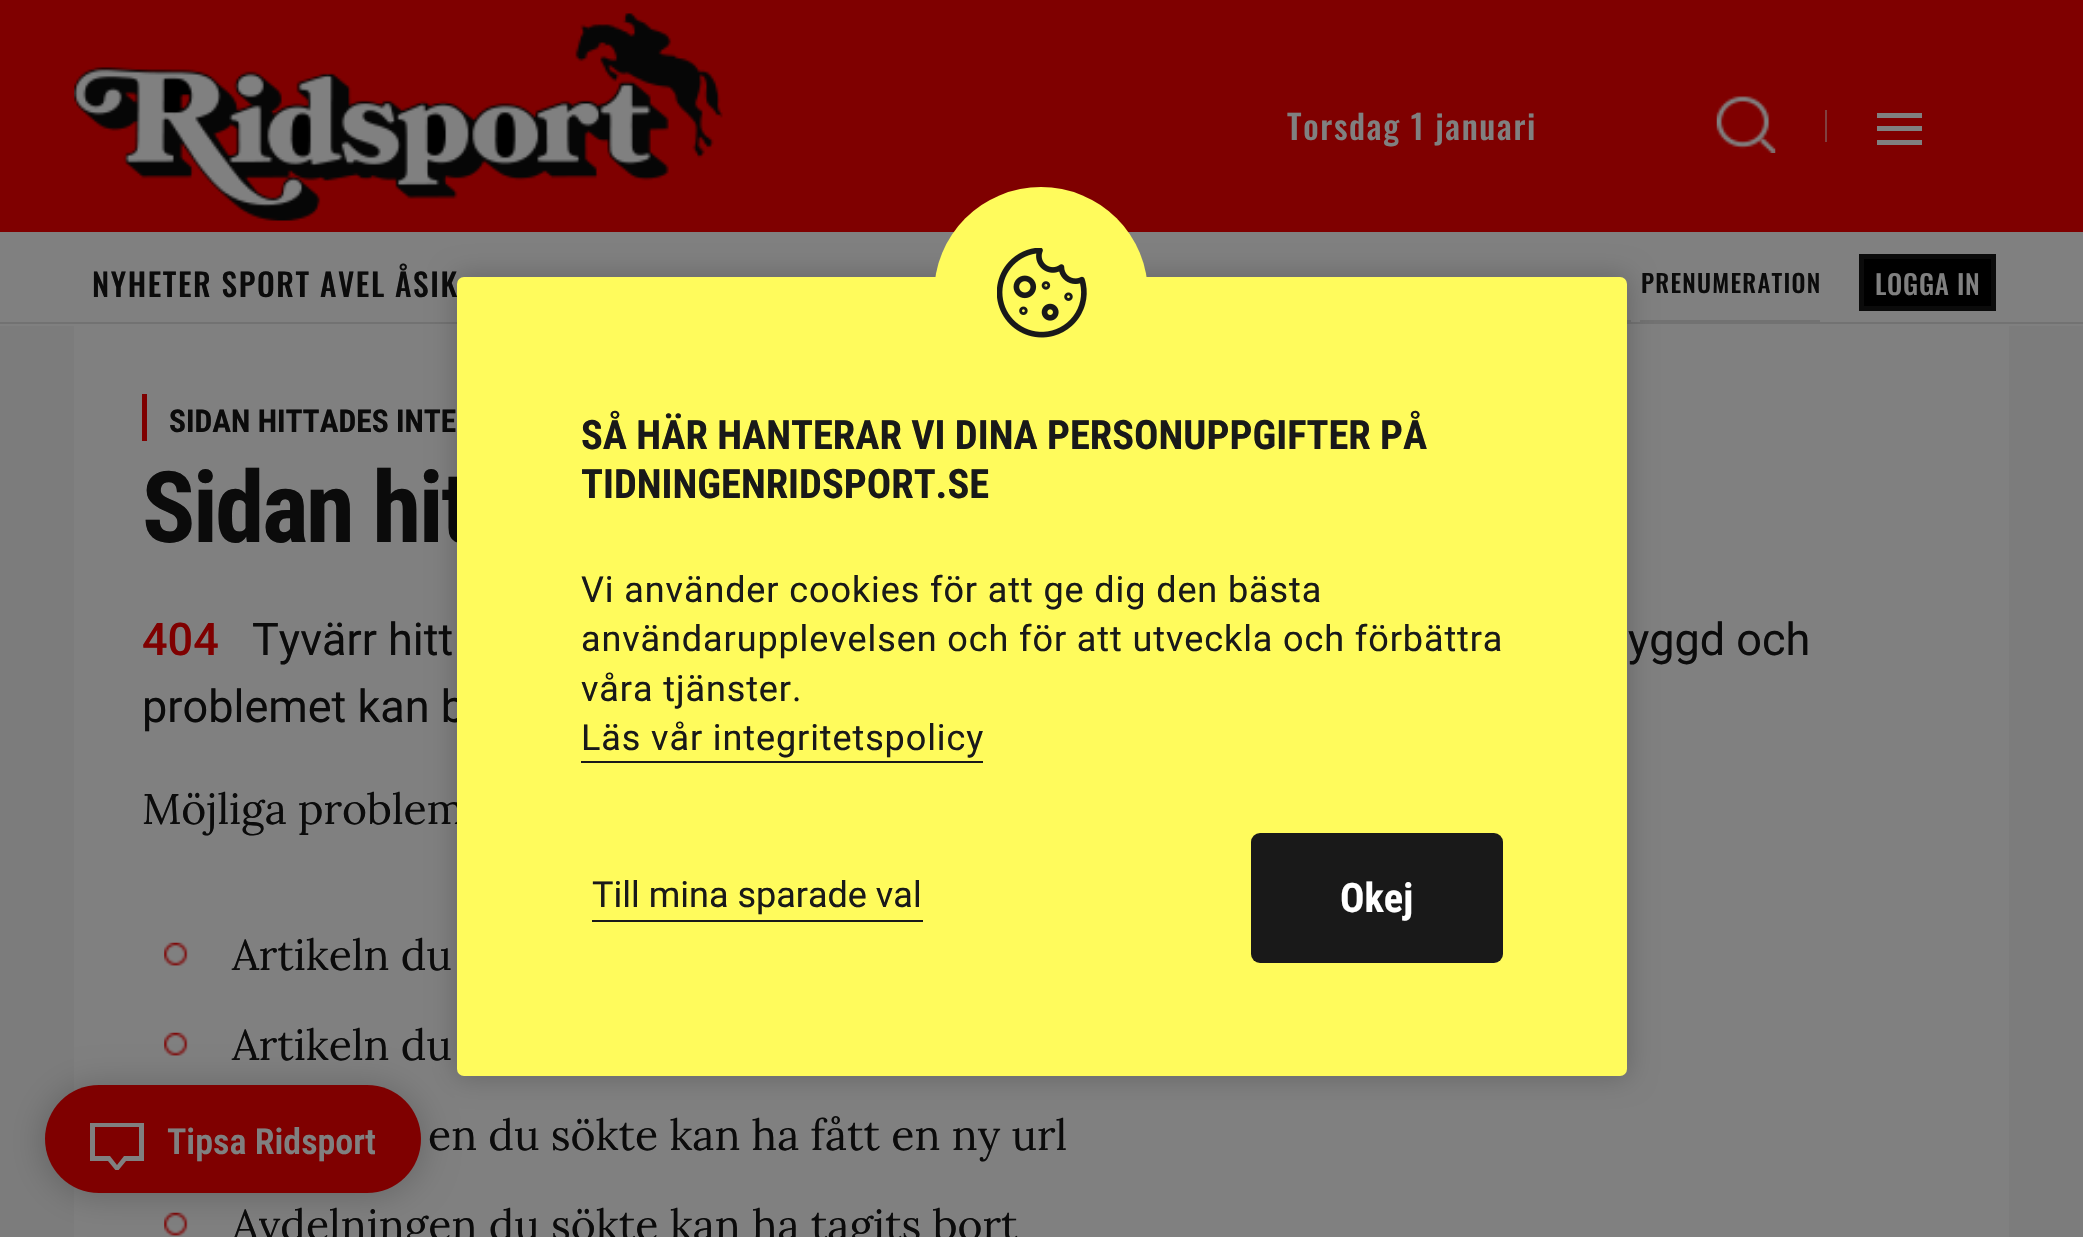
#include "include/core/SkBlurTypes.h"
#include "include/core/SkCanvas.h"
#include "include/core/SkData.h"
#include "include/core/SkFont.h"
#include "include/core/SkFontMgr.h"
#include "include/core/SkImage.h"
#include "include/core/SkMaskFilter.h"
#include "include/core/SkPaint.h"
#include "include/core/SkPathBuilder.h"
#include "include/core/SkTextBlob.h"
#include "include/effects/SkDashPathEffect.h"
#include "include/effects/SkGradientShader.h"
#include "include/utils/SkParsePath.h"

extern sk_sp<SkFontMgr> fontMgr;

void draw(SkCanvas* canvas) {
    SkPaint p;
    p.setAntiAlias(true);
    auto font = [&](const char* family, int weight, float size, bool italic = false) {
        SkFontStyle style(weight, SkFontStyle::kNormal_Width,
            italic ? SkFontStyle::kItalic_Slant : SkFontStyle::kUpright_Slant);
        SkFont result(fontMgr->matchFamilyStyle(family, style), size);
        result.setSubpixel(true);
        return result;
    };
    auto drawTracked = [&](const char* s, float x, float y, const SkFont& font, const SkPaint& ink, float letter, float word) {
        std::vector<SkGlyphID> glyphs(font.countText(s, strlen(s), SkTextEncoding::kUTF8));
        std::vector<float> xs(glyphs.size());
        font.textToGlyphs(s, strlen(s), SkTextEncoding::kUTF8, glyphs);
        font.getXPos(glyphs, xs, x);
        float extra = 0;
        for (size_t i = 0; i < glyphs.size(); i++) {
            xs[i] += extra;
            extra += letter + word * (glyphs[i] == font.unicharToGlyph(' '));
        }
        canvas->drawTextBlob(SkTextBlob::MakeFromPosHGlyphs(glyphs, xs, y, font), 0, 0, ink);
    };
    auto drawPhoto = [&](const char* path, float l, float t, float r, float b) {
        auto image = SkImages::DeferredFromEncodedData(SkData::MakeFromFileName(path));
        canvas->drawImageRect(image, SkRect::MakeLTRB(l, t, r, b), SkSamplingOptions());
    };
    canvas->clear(0xFF7C7C7C);
    p.setColor(0xFF7F0000);
    canvas->drawRect(SkRect::MakeLTRB(0, 0, 2083, 232), p);
    drawPhoto("media/1.png", 74, 13, 723, 221);
    auto font1 = font("Oswald", 500, 33.75f);
    p.setColor(0xFF808080);
    drawTracked("Torsdag 1 januari", 1287, 140, font1, p, 1.7f, 0);
    drawPhoto("media/2.png", 1716, 96, 1776, 153);
    {
        const struct { float l, t, r, b; SkColor color; } items[] = {
            {1825, 110, 1827, 142, 0xFF804040},
            {1877, 113, 1922, 118, 0xFF808080},
            {1877, 126, 1922, 131, 0xFF808080},
            {1877, 140, 1922, 145, 0xFF808080},
            {0, 232, 2083, 326, 0xFF808080},
        };
        for (auto [l, t, r, b, color] : items) {
            p.setColor(color);
            canvas->drawRect(SkRect::MakeLTRB(l, t, r, b), p);
        }
    }
    auto font2 = font("Oswald", 500, 31.5f);
    p.setColor(0xFF0B0B0B);
    drawTracked("NYHETER SPORT AVEL ÅSIK", 92, 297, font2, p, 1.6f, 0);
    p.setColor(0xFF727272);
    canvas->drawRect(SkRect::MakeLTRB(1640, 320, 1820, 322), p);
    auto font3 = font("Oswald", 500, 24.75f);
    p.setColor(0xFF0B0B0B);
    drawTracked("PRENUMERATION", 1641, 293, font3, p, 1.25f, 0);
    p.setColor(0xFF727272);
    canvas->drawRect(SkRect::MakeLTRB(1627, 320, 1631, 322), p);
    p.setColor(0xFF000000);
    canvas->drawRect(SkRect::MakeLTRB(1861.5f, 256.5f, 1993.5f, 308.5f), p);
    p.setStyle(SkPaint::kStroke_Style);
    p.setStrokeWidth(5);
    p.setColor(0xFF0B0B0B);
    canvas->drawRect(SkRect::MakeLTRB(1861.5f, 256.5f, 1993.5f, 308.5f), p);
    auto font4 = font("Oswald", 500, 27);
    p.setStyle(SkPaint::kFill_Style);
    p.setColor(0xFF808080);
    drawTracked("LOGGA IN", 1875, 295, font4, p, 0.75f, 0);
    {
        const struct { float l, t, r, b; SkColor color; } items[] = {
            {0, 322, 2083, 324, 0xFF727272},
            {74, 326, 2009, 1237, 0xFF808080},
            {142, 394, 147, 441, 0xFF7F0000},
        };
        for (auto [l, t, r, b, color] : items) {
            p.setColor(color);
            canvas->drawRect(SkRect::MakeLTRB(l, t, r, b), p);
        }
    }
    auto font5 = font("Roboto Condensed", 700, 31.5f);
    p.setColor(0xFF0B0B0B);
    canvas->drawString("SIDAN HITTADES INTE", 169, 432, font5, p);
    auto font6 = font("Roboto Condensed", 700, 99);
    drawTracked("Sidan hit", 142, 542, font6, p, -2.5f, 0);
    auto font7 = font("Roboto", 500, 45);
    p.setColor(0xFF7F0000);
    canvas->drawString("404", 142, 655, font7, p);
    auto font8 = font("Roboto", 400, 45);
    p.setColor(0xFF0B0B0B);
    {
        const struct { const char* s; float x, y; } items[] = {
            {"Tyvärr hitt", 252, 655},
            {"yggd och", 1628, 655},
            {"problemet kan b", 142, 722},
        };
        for (auto [s, x, y] : items) {
            canvas->drawString(s, x, y, font8, p);
        }
    }
    auto font9 = font("Lora", 400, 42.75f);
    canvas->drawString("Möjliga problem", 142, 824, font9, p);
    drawPhoto("media/3.png", 164, 942, 188, 966);
    canvas->drawString("Artikeln du", 232, 970, font9, p);
    drawPhoto("media/4.png", 164, 1032, 188, 1056);
    canvas->drawString("Artikeln du", 232, 1060, font9, p);
    canvas->drawString("en du sökte kan ha fått en ny url", 428, 1150, font9, p);
    drawPhoto("media/5.png", 164, 1212, 188, 1236);
    canvas->drawString("Avdelningen du sökte kan ha tagits bort", 232, 1240, font9, p);
    p.setColor(0x33000000);
    p.setMaskFilter(SkMaskFilter::MakeBlur(kNormal_SkBlurStyle, 17));
    canvas->drawRoundRect(SkRect::MakeLTRB(43, 1085, 423, 1197), 56, 56, p);
    p.setMaskFilter(nullptr);
    p.setColor(0xFF7F0000);
    canvas->drawRoundRect(SkRect::MakeLTRB(45, 1085, 421, 1193), 54, 54, p);
    p.setColor(0x33000000);
    p.setMaskFilter(SkMaskFilter::MakeBlur(kNormal_SkBlurStyle, 13.5f));
    canvas->drawRoundRect(SkRect::MakeLTRB(455, 275, 1629, 1078), 9, 9, p);
    p.setMaskFilter(nullptr);
    p.setColor(0xFFFFFB5C);
    canvas->drawRoundRect(SkRect::MakeLTRB(457, 277, 1627, 1076), 7, 7, p);
    canvas->drawCircle(1041, 294, 107, p);
    drawPhoto("media/6.png", 997, 248, 1087, 338);
    auto font10 = font("Roboto Condensed", 700, 40.5f);
    p.setColor(0xFF191919);
    canvas->drawString("SÅ HÄR HANTERAR VI DINA PERSONUPPGIFTER PÅ", 581, 449, font10, p);
    canvas->drawString("TIDNINGENRIDSPORT.SE", 581, 498, font10, p);
    auto font11 = font("Roboto", 400, 36);
    {
        const struct { const char* s; float x, y; } items[] = {
            {"Vi använder cookies för att ge dig den bästa", 581, 602},
            {"användarupplevelsen och för att utveckla och förbättra", 581, 651},
            {"våra tjänster.", 581, 701},
            {"Läs vår integritetspolicy", 581, 750},
        };
        for (auto [s, x, y] : items) {
            drawTracked(s, x, y, font11, p, 0.9f, 0);
        }
    }
    canvas->drawRect(SkRect::MakeLTRB(581, 761, 983, 763), p);
    canvas->drawRect(SkRect::MakeLTRB(592, 920, 923, 922), p);
    canvas->drawString("Till mina sparade val", 592, 907, font11, p);
    canvas->drawRoundRect(SkRect::MakeLTRB(1251, 833, 1503, 963), 9, 9, p);
    p.setColor(0xFFFFFFFF);
    canvas->drawString("Okej", 1340, 912, font10, p);
    canvas->save();
    canvas->clipRect(SkRect::MakeLTRB(90, 1123, 144, 1170));
    p.setColor(0xFF808080);
    canvas->drawPath(SkPathBuilder().moveTo(139, 1127).lineTo(139, 1156).lineTo(124, 1156).lineTo(117, 1165).lineTo(110, 1156).lineTo(95, 1156).lineTo(95, 1127).close().moveTo(144, 1123).lineTo(90, 1123).lineTo(90, 1161).lineTo(108, 1161).lineTo(117, 1172).lineTo(126, 1161).lineTo(144, 1161).close().detach(), p);
    canvas->restore();
    auto font12 = font("Roboto Condensed", 600, 36);
    canvas->drawString("Tipsa Ridsport", 167, 1154, font12, p);
}
